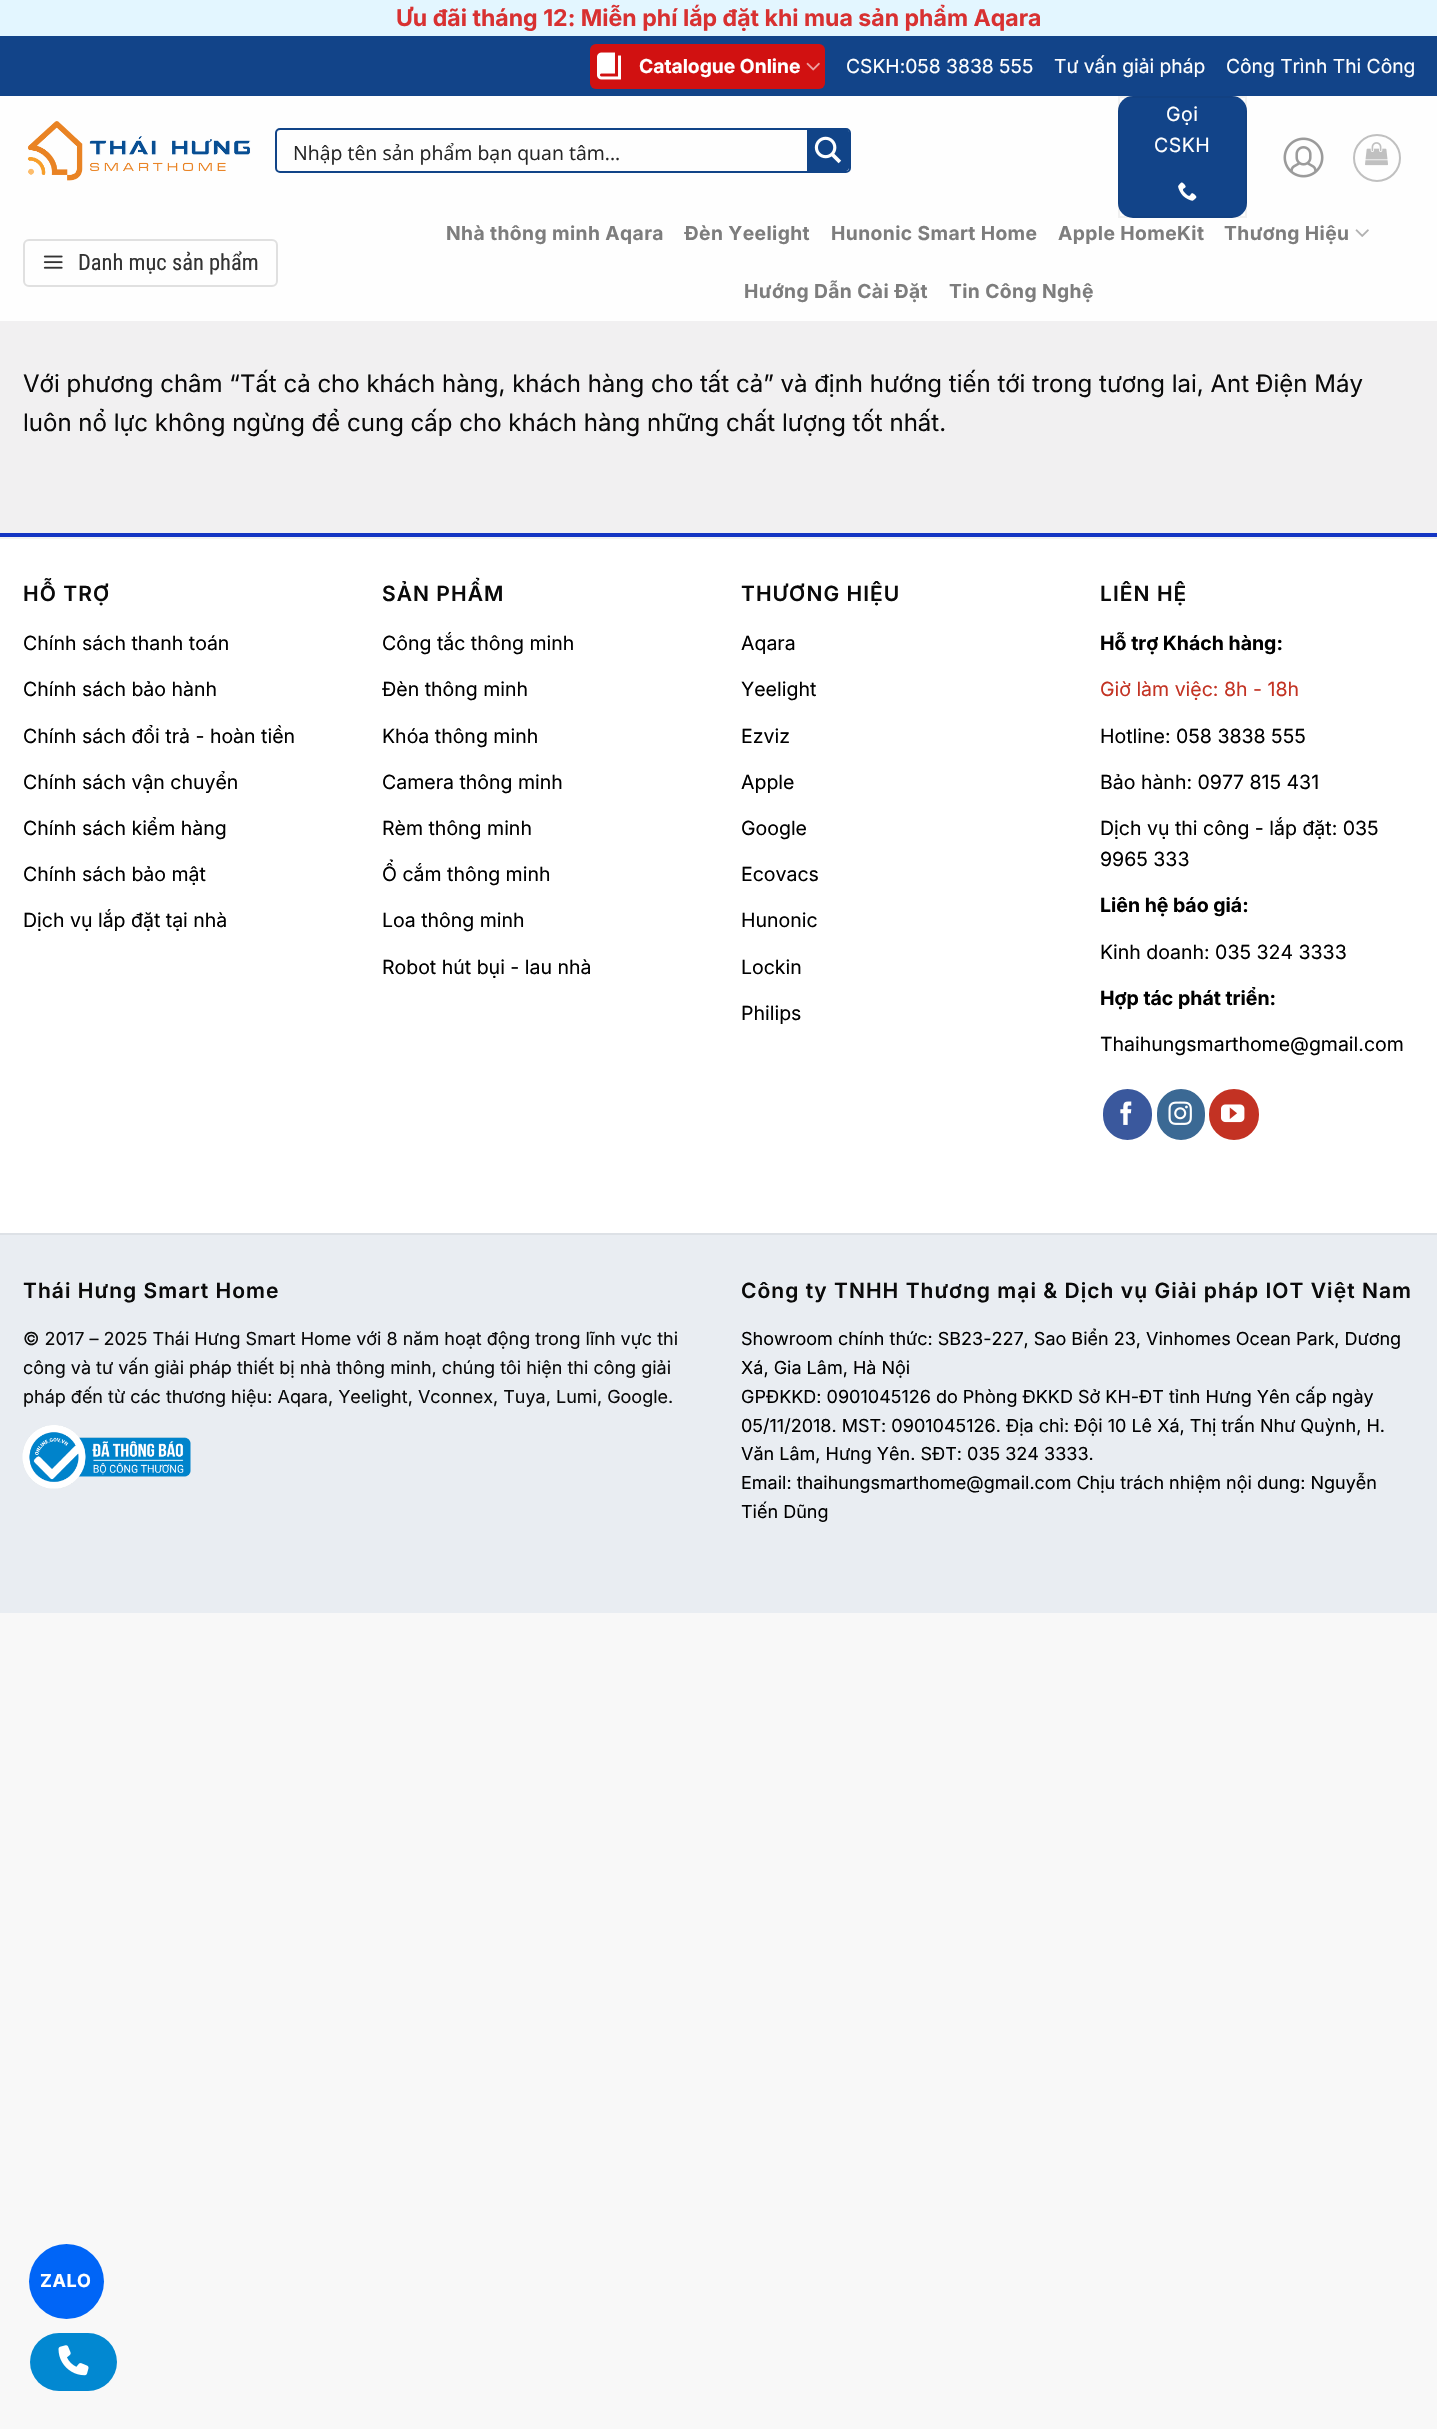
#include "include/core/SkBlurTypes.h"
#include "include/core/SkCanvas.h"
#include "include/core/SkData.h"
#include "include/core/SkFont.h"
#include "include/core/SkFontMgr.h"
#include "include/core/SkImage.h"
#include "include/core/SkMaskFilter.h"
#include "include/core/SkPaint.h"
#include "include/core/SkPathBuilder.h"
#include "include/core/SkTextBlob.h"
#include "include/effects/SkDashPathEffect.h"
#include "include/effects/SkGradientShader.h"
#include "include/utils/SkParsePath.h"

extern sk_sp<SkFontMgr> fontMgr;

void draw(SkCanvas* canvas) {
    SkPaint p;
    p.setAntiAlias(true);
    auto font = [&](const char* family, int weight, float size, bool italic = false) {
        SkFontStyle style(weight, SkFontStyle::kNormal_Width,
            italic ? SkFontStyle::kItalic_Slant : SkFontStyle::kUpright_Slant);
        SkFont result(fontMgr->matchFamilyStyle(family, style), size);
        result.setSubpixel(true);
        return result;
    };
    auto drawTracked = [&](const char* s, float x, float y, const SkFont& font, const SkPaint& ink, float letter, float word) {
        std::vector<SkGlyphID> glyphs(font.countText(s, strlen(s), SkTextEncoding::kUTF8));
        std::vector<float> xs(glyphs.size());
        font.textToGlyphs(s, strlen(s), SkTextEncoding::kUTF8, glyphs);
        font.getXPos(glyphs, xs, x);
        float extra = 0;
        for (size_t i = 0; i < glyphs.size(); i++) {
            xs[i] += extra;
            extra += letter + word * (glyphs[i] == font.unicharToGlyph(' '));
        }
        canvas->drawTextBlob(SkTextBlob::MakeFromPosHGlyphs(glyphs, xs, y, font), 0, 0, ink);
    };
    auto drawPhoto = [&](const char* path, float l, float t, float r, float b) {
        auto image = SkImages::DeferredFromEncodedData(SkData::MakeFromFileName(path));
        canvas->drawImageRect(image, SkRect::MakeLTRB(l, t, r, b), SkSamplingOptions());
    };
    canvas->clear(0xFFF8F8F8);
    p.setColor(0xFFE3F6FF);
    canvas->drawRect(SkRect::MakeLTRB(0, 0, 1437, 36), p);
    auto font1 = font("Inter", 700, 23.1f);
    p.setColor(0xFFD83131);
    canvas->drawString("Ưu đãi tháng 12: Miễn phí lắp đặt khi mua sản phẩm Aqara", 396, 26, font1, p);
    {
        const struct { float l, t, r, b; SkColor color; } items[] = {
            {0, 321, 1437, 533, 0xFFF1F0F1},
            {0, 96, 1437, 321, 0xFFFEFEFE},
            {0, 36, 1437, 96, 0xFF124489},
        };
        for (auto [l, t, r, b, color] : items) {
            p.setColor(color);
            canvas->drawRect(SkRect::MakeLTRB(l, t, r, b), p);
        }
    }
    p.setColor(0xFFD11111);
    canvas->drawRoundRect(SkRect::MakeLTRB(590, 44, 825, 89), 6, 6, p);
    drawPhoto("media/1.png", 597, 52, 621, 80);
    auto font2 = font("Inter", 700, 19.25f);
    p.setColor(0xFFFFFFFF);
    canvas->drawString("Catalogue Online", 639, 73, font2, p);
    drawPhoto("media/2.png", 806, 62, 820, 71);
    auto font3 = font("Inter", 400, 19.25f);
    {
        const struct { const char* s; float x, y; } items[] = {
            {"CSKH:058 3838 555", 846, 73},
            {"Tư vấn giải pháp", 1054, 73},
            {"Công Trình Thi Công", 1226, 73},
        };
        for (auto [s, x, y] : items) {
            canvas->drawString(s, x, y, font3, p);
        }
    }
    drawPhoto("media/3.png", 27, 121, 251, 181);
    p.setStyle(SkPaint::kStroke_Style);
    p.setStrokeWidth(2);
    p.setColor(0xFF114488);
    canvas->drawRoundRect(SkRect::MakeLTRB(276, 129, 850, 172), 4, 4, p);
    auto font4 = font("Open Sans", 400, 19.5f);
    p.setStyle(SkPaint::kFill_Style);
    p.setColor(0xFF262626);
    canvas->drawString("Nhập tên sản phẩm bạn quan tâm...", 293, 160, font4, p);
    p.setColor(0xFF114488);
    canvas->drawPath(SkPathBuilder().moveTo(807, 129).lineTo(846, 129).cubicTo(847.5f, 129, 849, 130.5f, 849, 132).lineTo(849, 168).cubicTo(849, 169.5f, 847.5f, 171, 846, 171).lineTo(807, 171).close().detach(), p);
    drawPhoto("media/4.png", 814, 136, 842, 164);
    p.setColor(0xFF124489);
    canvas->drawRoundRect(SkRect::MakeLTRB(1118, 96, 1247, 218), 15, 15, p);
    p.setStyle(SkPaint::kStroke_Style);
    p.setColor(0x0D000000);
    canvas->drawRect(SkRect::MakeLTRB(1119, 97, 1246, 217), p);
    auto font5 = font("Inter", 400, 19.5f);
    p.setStyle(SkPaint::kFill_Style);
    p.setColor(0xFFFFFFFF);
    drawTracked("Gọi", 1166, 121, font5, p, 0.5f, 0);
    drawTracked("CSKH", 1154, 152, font5, p, 0.5f, 0);
    drawPhoto("media/5.png", 1178, 182, 1197, 201);
    drawPhoto("media/6.png", 1283, 137, 1324, 178);
    p.setStyle(SkPaint::kStroke_Style);
    p.setColor(0xFFC0C0C0);
    canvas->drawCircle(1377, 158, 23, p);
    drawPhoto("media/7.png", 1365, 142, 1388, 166);
    p.setColor(0xFFE0E0E0);
    canvas->drawRoundRect(SkRect::MakeLTRB(24, 240, 277, 286), 5, 5, p);
    drawPhoto("media/8.png", 43, 255, 63, 269);
    auto font6 = font("Roboto Condensed", 400, 22.5f);
    p.setStyle(SkPaint::kFill_Style);
    p.setColor(0xFF333333);
    canvas->drawString("Danh mục sản phẩm", 78, 270, font6, p);
    p.setColor(0xFF7D7D7D);
    {
        const struct { const char* s; float x, y; } items[] = {
            {"Nhà thông minh Aqara", 446, 240},
            {"Đèn Yeelight", 684, 240},
            {"Hunonic Smart Home", 831, 240},
            {"Apple HomeKit", 1058, 240},
            {"Thương Hiệu", 1224, 240},
        };
        for (auto [s, x, y] : items) {
            drawTracked(s, x, y, font2, p, 0.4f, 0);
        }
    }
    drawPhoto("media/9.png", 1355, 229, 1369, 237);
    drawTracked("Hướng Dẫn Cài Đặt", 744, 298, font2, p, 0.4f, 0);
    drawTracked("Tin Công Nghệ", 949, 298, font2, p, 0.4f, 0);
    auto font7 = font("Inter", 400, 24);
    p.setColor(0xFF0A0A0A);
    canvas->drawString("Với phương châm “Tất cả cho khách hàng, khách hàng cho tất cả” và định hướng tiến tới trong tương lai, Ant Điện Máy", 23, 392, font7, p);
    canvas->drawString("luôn nổ lực không ngừng để cung cấp cho khách hàng những chất lượng tốt nhất.", 23, 431, font7, p);
    {
        const struct { float l, t, r, b; SkColor color; } items[] = {
            {0, 533, 1437, 537, 0xFF1435C3},
            {0, 539, 1437, 1233, 0xFFFFFFFF},
            {0, 537, 1437, 539, 0xFFF2F2F2},
        };
        for (auto [l, t, r, b, color] : items) {
            p.setColor(color);
            canvas->drawRect(SkRect::MakeLTRB(l, t, r, b), p);
        }
    }
    auto font8 = font("Inter", 600, 21);
    p.setColor(0xFF0A0A0A);
    drawTracked("HỖ TRỢ", 23, 601, font8, p, 1.05f, 0);
    p.setColor(0xFF000000);
    {
        const struct { const char* s; float x, y; } items[] = {
            {"Chính sách thanh toán", 23, 650},
            {"Chính sách bảo hành", 23, 696},
            {"Chính sách đổi trả - hoàn tiền", 23, 743},
            {"Chính sách vận chuyển", 23, 789},
            {"Chính sách kiểm hàng", 23, 835},
            {"Chính sách bảo mật", 23, 881},
            {"Dịch vụ lắp đặt tại nhà", 23, 927},
        };
        for (auto [s, x, y] : items) {
            canvas->drawString(s, x, y, font5, p);
        }
    }
    p.setColor(0xFF0A0A0A);
    drawTracked("SẢN PHẨM", 382, 601, font8, p, 1.05f, 0);
    p.setColor(0xFF000000);
    {
        const struct { const char* s; float x, y; } items[] = {
            {"Công tắc thông minh", 382, 650},
            {"Đèn thông minh", 382, 696},
            {"Khóa thông minh", 382, 743},
            {"Camera thông minh", 382, 789},
            {"Rèm thông minh", 382, 835},
            {"Ổ cắm thông minh", 382, 881},
            {"Loa thông minh", 382, 927},
            {"Robot hút bụi - lau nhà", 382, 974},
        };
        for (auto [s, x, y] : items) {
            canvas->drawString(s, x, y, font5, p);
        }
    }
    p.setColor(0xFF0A0A0A);
    drawTracked("THƯƠNG HIỆU", 741, 601, font8, p, 1.05f, 0);
    p.setColor(0xFF000000);
    {
        const struct { const char* s; float x, y; } items[] = {
            {"Aqara", 741, 650},
            {"Yeelight", 741, 696},
            {"Ezviz", 741, 743},
            {"Apple", 741, 789},
            {"Google", 741, 835},
            {"Ecovacs", 741, 881},
            {"Hunonic", 741, 927},
            {"Lockin", 741, 974},
            {"Philips", 741, 1020},
        };
        for (auto [s, x, y] : items) {
            canvas->drawString(s, x, y, font5, p);
        }
    }
    p.setColor(0xFF0A0A0A);
    drawTracked("LIÊN HỆ", 1100, 601, font8, p, 1.05f, 0);
    auto font9 = font("Inter", 700, 19.5f);
    p.setColor(0xFF000000);
    canvas->drawString("Hỗ trợ Khách hàng:", 1100, 650, font9, p);
    p.setColor(0xFFC33323);
    canvas->drawString("Giờ làm việc: 8h - 18h", 1100, 696, font5, p);
    p.setColor(0xFF000000);
    {
        const struct { const char* s; float x, y; } items[] = {
            {"Hotline: 058 3838 555", 1100, 743},
            {"Bảo hành: 0977 815 431", 1100, 789},
            {"Dịch vụ thi công - lắp đặt: 035", 1100, 835},
            {"9965 333", 1100, 866},
        };
        for (auto [s, x, y] : items) {
            canvas->drawString(s, x, y, font5, p);
        }
    }
    canvas->drawString("Liên hệ báo giá:", 1100, 912, font9, p);
    canvas->drawString("Kinh doanh: 035 324 3333", 1100, 959, font5, p);
    canvas->drawString("Hợp tác phát triển:", 1100, 1005, font9, p);
    canvas->drawString("Thaihungsmarthome@gmail.com", 1100, 1051, font5, p);
    p.setColor(0xFF3A589D);
    canvas->drawRoundRect(SkRect::MakeLTRB(1104, 1090, 1151, 1139), 23.5f, 23.5f, p);
    p.setStyle(SkPaint::kStroke_Style);
    canvas->drawRoundRect(SkRect::MakeLTRB(1104, 1090, 1151, 1139), 23.5f, 23.5f, p);
    drawPhoto("media/10.png", 1120, 1101, 1132, 1125);
    p.setStyle(SkPaint::kFill_Style);
    p.setColor(0xFF3B6994);
    canvas->drawRoundRect(SkRect::MakeLTRB(1158, 1090, 1204, 1139), 23, 23, p);
    p.setStyle(SkPaint::kStroke_Style);
    canvas->drawRoundRect(SkRect::MakeLTRB(1158, 1090, 1204, 1139), 23, 23, p);
    drawPhoto("media/11.png", 1168, 1101, 1192, 1125);
    p.setStyle(SkPaint::kFill_Style);
    p.setColor(0xFFC33223);
    canvas->drawRoundRect(SkRect::MakeLTRB(1210, 1090, 1258, 1139), 24, 24, p);
    p.setStyle(SkPaint::kStroke_Style);
    canvas->drawRoundRect(SkRect::MakeLTRB(1210, 1090, 1258, 1139), 24, 24, p);
    drawPhoto("media/12.png", 1221, 1104, 1245, 1123);
    p.setStyle(SkPaint::kFill_Style);
    p.setColor(0xFFE9EDF2);
    canvas->drawRect(SkRect::MakeLTRB(0, 1235, 1437, 1613), p);
    p.setColor(0xFFDDE1E6);
    canvas->drawRect(SkRect::MakeLTRB(0, 1233, 1437, 1235), p);
    p.setColor(0xFF0A0A0A);
    drawTracked("Thái Hưng Smart Home", 23, 1298, font8, p, 1.05f, 0);
    auto font10 = font("Inter", 400, 18);
    {
        const struct { const char* s; float x, y; } items[] = {
            {"© 2017 – 2025 Thái Hưng Smart Home với 8 năm hoạt động trong lĩnh vực thi", 23, 1345},
            {"công và tư vấn giải pháp thiết bị nhà thông minh, chúng tôi hiện thi công giải", 23, 1374},
            {"pháp đến từ các thương hiệu: Aqara, Yeelight, Vconnex, Tuya, Lumi, Google.", 23, 1403},
        };
        for (auto [s, x, y] : items) {
            canvas->drawString(s, x, y, font10, p);
        }
    }
    drawPhoto("media/13.png", 22, 1425, 191, 1489);
    drawTracked("Công ty TNHH Thương mại & Dịch vụ Giải pháp IOT Việt Nam", 741, 1298, font8, p, 1.05f, 0);
    p.setColor(0xFF000000);
    {
        const struct { const char* s; float x, y; } items[] = {
            {"Showroom chính thức: SB23-227, Sao Biển 23, Vinhomes Ocean Park, Dương", 741, 1345},
            {"Xá, Gia Lâm, Hà Nội", 741, 1374},
            {"GPĐKKD: 0901045126 do Phòng ĐKKD Sở KH-ĐT tỉnh Hưng Yên cấp ngày", 741, 1403},
            {"05/11/2018. MST: 0901045126. Địa chỉ: Đội 10 Lê Xá, Thị trấn Như Quỳnh, H.", 741, 1432},
            {"Văn Lâm, Hưng Yên. SĐT: 035 324 3333.", 741, 1460},
            {"Email: thaihungsmarthome@gmail.com Chịu trách nhiệm nội dung: Nguyễn", 741, 1489},
            {"Tiến Dũng", 741, 1518},
        };
        for (auto [s, x, y] : items) {
            canvas->drawString(s, x, y, font10, p);
        }
    }
    p.setColor(0xFF0065F7);
    canvas->drawCircle(66.5f, 2281.5f, 37.5f, p);
    auto font11 = font("Inter", 700, 18);
    p.setColor(0xFFFFFFFF);
    drawTracked("ZALO", 40, 2287, font11, p, 0.5f, 0);
    p.setColor(0xFF0288D1);
    canvas->drawRoundRect(SkRect::MakeLTRB(30, 2333, 117, 2391), 29, 29, p);
    drawPhoto("media/14.png", 58, 2345, 89, 2376);
}
